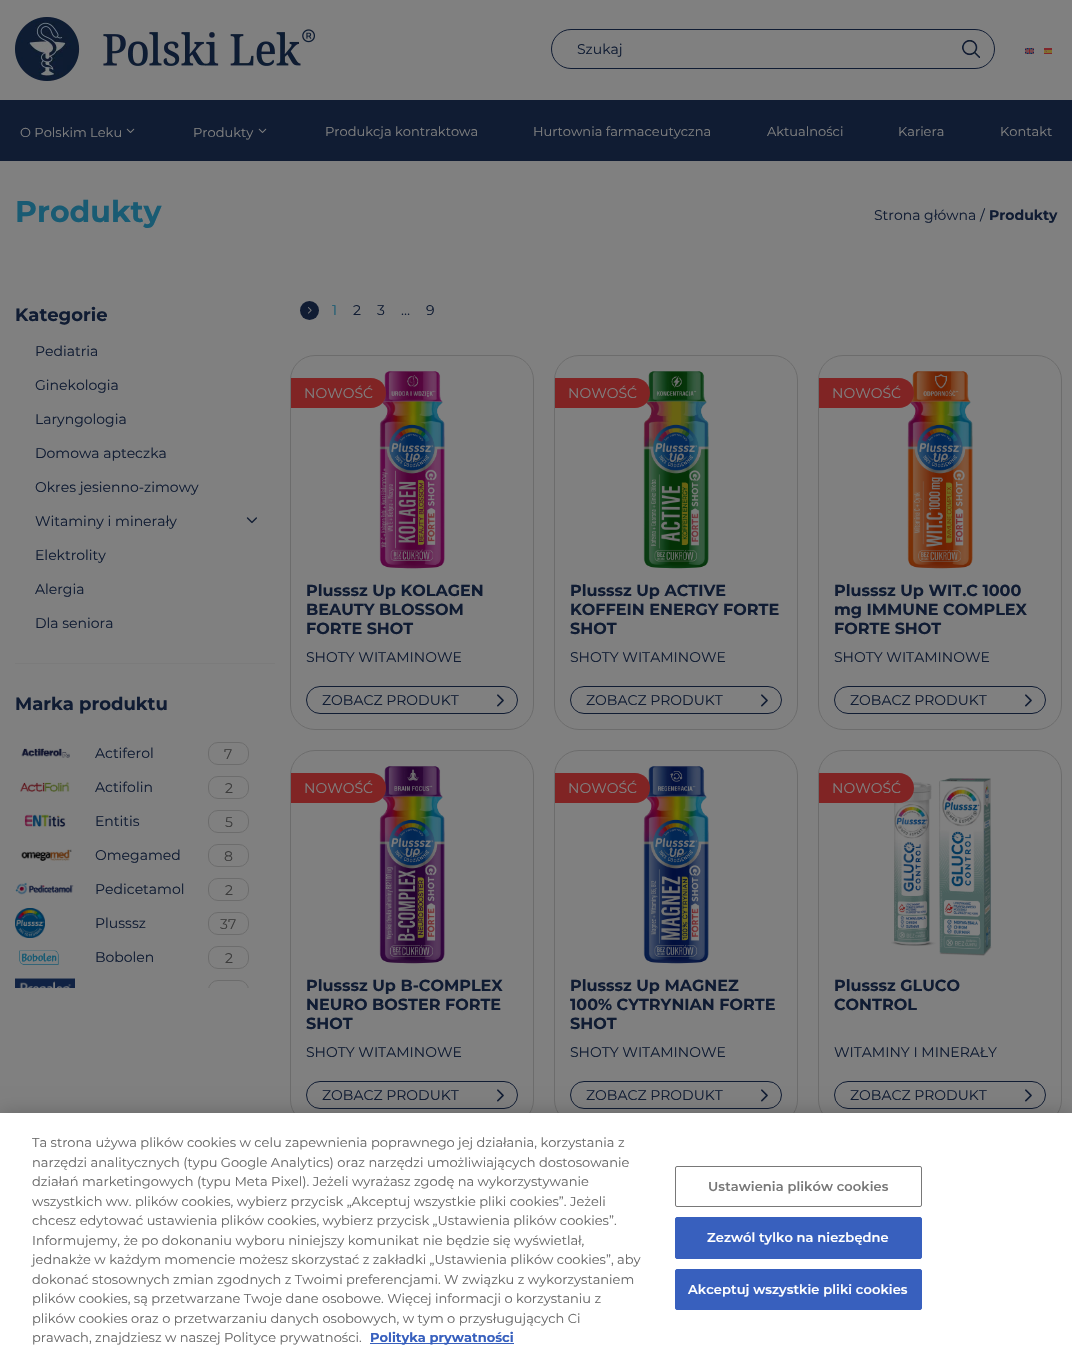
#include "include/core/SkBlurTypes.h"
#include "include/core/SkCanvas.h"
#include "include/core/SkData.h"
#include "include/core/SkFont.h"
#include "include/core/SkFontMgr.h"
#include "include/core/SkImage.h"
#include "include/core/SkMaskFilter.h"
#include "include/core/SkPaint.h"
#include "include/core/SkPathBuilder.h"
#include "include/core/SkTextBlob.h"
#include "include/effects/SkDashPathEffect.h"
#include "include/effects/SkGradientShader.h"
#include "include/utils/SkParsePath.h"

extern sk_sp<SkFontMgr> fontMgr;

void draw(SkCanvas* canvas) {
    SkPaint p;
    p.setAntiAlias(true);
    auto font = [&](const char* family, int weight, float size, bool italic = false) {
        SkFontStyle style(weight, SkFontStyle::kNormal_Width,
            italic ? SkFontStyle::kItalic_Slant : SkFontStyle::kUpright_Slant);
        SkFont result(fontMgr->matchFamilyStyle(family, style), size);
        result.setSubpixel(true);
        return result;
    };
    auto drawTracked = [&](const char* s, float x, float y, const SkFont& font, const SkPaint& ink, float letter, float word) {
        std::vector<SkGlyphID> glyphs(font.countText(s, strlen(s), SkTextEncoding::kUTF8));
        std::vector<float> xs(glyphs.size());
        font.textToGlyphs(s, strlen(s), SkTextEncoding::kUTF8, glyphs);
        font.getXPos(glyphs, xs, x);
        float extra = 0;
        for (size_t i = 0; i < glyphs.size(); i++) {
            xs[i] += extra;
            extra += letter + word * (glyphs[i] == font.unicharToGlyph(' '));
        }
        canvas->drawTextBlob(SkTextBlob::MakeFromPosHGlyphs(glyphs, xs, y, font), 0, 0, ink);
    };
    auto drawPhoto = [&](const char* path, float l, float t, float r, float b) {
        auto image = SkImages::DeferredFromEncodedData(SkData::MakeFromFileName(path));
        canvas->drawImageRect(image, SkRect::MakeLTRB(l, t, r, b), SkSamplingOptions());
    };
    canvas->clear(0xFF808080);
    drawPhoto("media/1.png", 15, 17, 315, 81);
    drawPhoto("media/2.png", 962, 40, 980, 58);
    p.setStyle(SkPaint::kStroke_Style);
    p.setStrokeWidth(1);
    p.setColor(0xFF101C33);
    canvas->drawRoundRect(SkRect::MakeLTRB(551.5f, 29.5f, 994.5f, 68.5f), 19.5f, 19.5f, p);
    auto font1 = font("Montserrat", 400, 14);
    p.setStyle(SkPaint::kFill_Style);
    canvas->drawString("Szukaj", 577, 54, font1, p);
    drawPhoto("media/3.png", 1025, 48, 1034, 54);
    drawPhoto("media/4.png", 1044, 48, 1052, 54);
    canvas->drawRect(SkRect::MakeLTRB(0, 100, 1072, 161), p);
    auto font2 = font("Montserrat", 400, 13);
    p.setColor(0xFF808080);
    canvas->drawString("O Polskim Leku", 20, 137, font2, p);
    drawPhoto("media/5.png", 126, 128, 135, 133);
    canvas->drawString("Produkty", 193, 137, font2, p);
    drawPhoto("media/5.png", 258, 128, 267, 133);
    {
        const struct { const char* s; float x, y; } items[] = {
            {"Produkcja kontraktowa", 325, 136},
            {"Hurtownia farmaceutyczna", 533, 136},
            {"Aktualności", 767, 136},
            {"Kariera", 898, 136},
            {"Kontakt", 1000, 136},
        };
        for (auto [s, x, y] : items) {
            canvas->drawString(s, x, y, font2, p);
        }
    }
    auto font3 = font("Montserrat", 700, 30);
    p.setColor(0xFF195B73);
    canvas->drawString("Produkty", 15, 222, font3, p);
    p.setColor(0xFF101C33);
    canvas->drawString("Strona główna /", 874, 220, font1, p);
    auto font4 = font("Montserrat", 700, 14);
    canvas->drawString("Produkty", 989, 220, font4, p);
    auto font5 = font("Montserrat", 700, 18);
    canvas->drawString("Kategorie", 15, 321, font5, p);
    {
        const struct { const char* s; float x, y; } items[] = {
            {"Pediatria", 35, 356},
            {"Ginekologia", 35, 390},
            {"Laryngologia", 35, 424},
            {"Domowa apteczka", 35, 458},
            {"Okres jesienno-zimowy", 35, 492},
            {"Witaminy i minerały", 35, 526},
        };
        for (auto [s, x, y] : items) {
            canvas->drawString(s, x, y, font1, p);
        }
    }
    drawPhoto("media/6.png", 246, 517, 257, 524);
    {
        const struct { const char* s; float x, y; } items[] = {
            {"Elektrolity", 35, 560},
            {"Alergia", 35, 594},
            {"Dla seniora", 35, 628},
        };
        for (auto [s, x, y] : items) {
            canvas->drawString(s, x, y, font1, p);
        }
    }
    p.setColor(0xFF7B7B7B);
    canvas->drawRect(SkRect::MakeLTRB(15, 663, 275, 664), p);
    p.setColor(0xFF101C33);
    canvas->drawString("Marka produktu", 15, 710, font5, p);
    drawPhoto("media/7.png", 21, 748, 70, 758);
    canvas->drawString("Actiferol", 95, 758, font1, p);
    p.setStyle(SkPaint::kStroke_Style);
    p.setColor(0xFF6C6C6C);
    canvas->drawRoundRect(SkRect::MakeLTRB(208.5f, 742.5f, 248.5f, 764.5f), 9.5f, 9.5f, p);
    p.setStyle(SkPaint::kFill_Style);
    p.setColor(0xFF3C3C3C);
    canvas->drawString("7", 224, 759, font1, p);
    drawPhoto("media/8.png", 20, 782, 70, 792);
    p.setColor(0xFF101C33);
    canvas->drawString("Actifolin", 95, 792, font1, p);
    p.setStyle(SkPaint::kStroke_Style);
    p.setColor(0xFF6C6C6C);
    canvas->drawRoundRect(SkRect::MakeLTRB(208.5f, 776.5f, 248.5f, 798.5f), 9.5f, 9.5f, p);
    p.setStyle(SkPaint::kFill_Style);
    p.setColor(0xFF3C3C3C);
    canvas->drawString("2", 225, 793, font1, p);
    drawPhoto("media/9.png", 24, 814, 66, 827);
    p.setColor(0xFF101C33);
    canvas->drawString("Entitis", 95, 826, font1, p);
    p.setStyle(SkPaint::kStroke_Style);
    p.setColor(0xFF6C6C6C);
    canvas->drawRoundRect(SkRect::MakeLTRB(208.5f, 810.5f, 248.5f, 832.5f), 9.5f, 9.5f, p);
    p.setStyle(SkPaint::kFill_Style);
    p.setColor(0xFF3C3C3C);
    canvas->drawString("5", 225, 827, font1, p);
    drawPhoto("media/10.png", 21, 849, 72, 861);
    p.setColor(0xFF101C33);
    canvas->drawString("Omegamed", 95, 860, font1, p);
    p.setStyle(SkPaint::kStroke_Style);
    p.setColor(0xFF6C6C6C);
    canvas->drawRoundRect(SkRect::MakeLTRB(208.5f, 844.5f, 248.5f, 866.5f), 9.5f, 9.5f, p);
    p.setStyle(SkPaint::kFill_Style);
    p.setColor(0xFF3C3C3C);
    canvas->drawString("8", 224, 861, font1, p);
    drawPhoto("media/11.png", 15, 882, 74, 895);
    p.setColor(0xFF101C33);
    canvas->drawString("Pedicetamol", 95, 894, font1, p);
    p.setStyle(SkPaint::kStroke_Style);
    p.setColor(0xFF6C6C6C);
    canvas->drawRoundRect(SkRect::MakeLTRB(208.5f, 878.5f, 248.5f, 900.5f), 9.5f, 9.5f, p);
    p.setStyle(SkPaint::kFill_Style);
    p.setColor(0xFF3C3C3C);
    canvas->drawString("2", 225, 895, font1, p);
    drawPhoto("media/12.png", 15, 908, 45, 938);
    p.setColor(0xFF101C33);
    canvas->drawString("Plusssz", 95, 928, font1, p);
    p.setStyle(SkPaint::kStroke_Style);
    p.setColor(0xFF6C6C6C);
    canvas->drawRoundRect(SkRect::MakeLTRB(208.5f, 912.5f, 248.5f, 934.5f), 9.5f, 9.5f, p);
    p.setStyle(SkPaint::kFill_Style);
    p.setColor(0xFF3C3C3C);
    canvas->drawString("37", 220, 929, font1, p);
    drawPhoto("media/13.png", 19, 950, 59, 965);
    p.setColor(0xFF101C33);
    canvas->drawString("Bobolen", 95, 962, font1, p);
    p.setStyle(SkPaint::kStroke_Style);
    p.setColor(0xFF6C6C6C);
    canvas->drawRoundRect(SkRect::MakeLTRB(208.5f, 946.5f, 248.5f, 968.5f), 9.5f, 9.5f, p);
    p.setStyle(SkPaint::kFill_Style);
    p.setColor(0xFF3C3C3C);
    canvas->drawString("2", 225, 963, font1, p);
    drawPhoto("media/14.png", 15, 978, 75, 988);
    canvas->save();
    canvas->clipRect(SkRect::MakeLTRB(15, 734, 275, 988));
    p.setStyle(SkPaint::kStroke_Style);
    p.setColor(0xFF6C6C6C);
    canvas->drawRoundRect(SkRect::MakeLTRB(208.5f, 980.5f, 248.5f, 1002.5f), 9.5f, 9.5f, p);
    canvas->restore();
    p.setStyle(SkPaint::kFill_Style);
    p.setColor(0xFF101C33);
    canvas->drawCircle(309.5f, 310.5f, 9.5f, p);
    drawPhoto("media/15.png", 308, 307, 312, 314);
    p.setColor(0xFF195B73);
    canvas->drawString("1", 332, 315, font1, p);
    p.setColor(0xFF101C33);
    {
        const struct { const char* s; float x, y; } items[] = {
            {"2", 353, 315},
            {"3", 377, 315},
            {"…", 401, 315},
            {"9", 426, 315},
        };
        for (auto [s, x, y] : items) {
            canvas->drawString(s, x, y, font1, p);
        }
    }
    p.setStyle(SkPaint::kStroke_Style);
    p.setColor(0xFF6C6C6C);
    canvas->drawRoundRect(SkRect::MakeLTRB(290.5f, 355.5f, 533.5f, 729.5f), 24.5f, 24.5f, p);
    drawPhoto("media/16.png", 379, 371, 445, 569);
    p.setStyle(SkPaint::kFill_Style);
    p.setColor(0xFF802424);
    canvas->drawPath(SkPathBuilder().moveTo(291, 378).lineTo(371, 378).cubicTo(379.5f, 378, 386, 384.5f, 386, 393).cubicTo(386, 401.5f, 379.5f, 408, 371, 408).lineTo(291, 408).close().detach(), p);
    p.setColor(0xFF808080);
    canvas->drawString("NOWOŚĆ", 304, 398, font1, p);
    auto font6 = font("Montserrat", 700, 16);
    p.setColor(0xFF101C33);
    {
        const struct { const char* s; float x, y; } items[] = {
            {"Plusssz Up KOLAGEN", 306, 596},
            {"BEAUTY BLOSSOM", 306, 615},
            {"FORTE SHOT", 306, 634},
        };
        for (auto [s, x, y] : items) {
            canvas->drawString(s, x, y, font6, p);
        }
    }
    canvas->drawString("SHOTY WITAMINOWE", 306, 662, font1, p);
    p.setStyle(SkPaint::kStroke_Style);
    canvas->drawRoundRect(SkRect::MakeLTRB(306.5f, 686.5f, 517.5f, 713.5f), 13.5f, 13.5f, p);
    p.setStyle(SkPaint::kFill_Style);
    canvas->drawString("ZOBACZ PRODUKT", 322, 705, font1, p);
    drawPhoto("media/17.png", 497, 694, 504, 707);
    p.setStyle(SkPaint::kStroke_Style);
    p.setColor(0xFF6C6C6C);
    canvas->drawRoundRect(SkRect::MakeLTRB(554.5f, 355.5f, 797.5f, 729.5f), 24.5f, 24.5f, p);
    drawPhoto("media/18.png", 643, 371, 709, 569);
    p.setStyle(SkPaint::kFill_Style);
    p.setColor(0xFF802424);
    canvas->drawPath(SkPathBuilder().moveTo(555, 378).lineTo(635, 378).cubicTo(643.5f, 378, 650, 384.5f, 650, 393).cubicTo(650, 401.5f, 643.5f, 408, 635, 408).lineTo(555, 408).close().detach(), p);
    p.setColor(0xFF808080);
    canvas->drawString("NOWOŚĆ", 568, 398, font1, p);
    p.setColor(0xFF101C33);
    {
        const struct { const char* s; float x, y; } items[] = {
            {"Plusssz Up ACTIVE", 570, 596},
            {"KOFFEIN ENERGY FORTE", 570, 615},
            {"SHOT", 570, 634},
        };
        for (auto [s, x, y] : items) {
            canvas->drawString(s, x, y, font6, p);
        }
    }
    canvas->drawString("SHOTY WITAMINOWE", 570, 662, font1, p);
    p.setStyle(SkPaint::kStroke_Style);
    canvas->drawRoundRect(SkRect::MakeLTRB(570.5f, 686.5f, 781.5f, 713.5f), 13.5f, 13.5f, p);
    p.setStyle(SkPaint::kFill_Style);
    canvas->drawString("ZOBACZ PRODUKT", 586, 705, font1, p);
    drawPhoto("media/17.png", 761, 694, 768, 707);
    p.setStyle(SkPaint::kStroke_Style);
    p.setColor(0xFF6C6C6C);
    canvas->drawRoundRect(SkRect::MakeLTRB(818.5f, 355.5f, 1061.5f, 729.5f), 24.5f, 24.5f, p);
    drawPhoto("media/19.png", 907, 371, 973, 569);
    p.setStyle(SkPaint::kFill_Style);
    p.setColor(0xFF802424);
    canvas->drawPath(SkPathBuilder().moveTo(819, 378).lineTo(899, 378).cubicTo(907.5f, 378, 914, 384.5f, 914, 393).cubicTo(914, 401.5f, 907.5f, 408, 899, 408).lineTo(819, 408).close().detach(), p);
    p.setColor(0xFF808080);
    canvas->drawString("NOWOŚĆ", 832, 398, font1, p);
    p.setColor(0xFF101C33);
    {
        const struct { const char* s; float x, y; } items[] = {
            {"Plusssz Up WIT.C 1000", 834, 596},
            {"mg IMMUNE COMPLEX", 834, 615},
            {"FORTE SHOT", 834, 634},
        };
        for (auto [s, x, y] : items) {
            canvas->drawString(s, x, y, font6, p);
        }
    }
    canvas->drawString("SHOTY WITAMINOWE", 834, 662, font1, p);
    p.setStyle(SkPaint::kStroke_Style);
    canvas->drawRoundRect(SkRect::MakeLTRB(834.5f, 686.5f, 1045.5f, 713.5f), 13.5f, 13.5f, p);
    p.setStyle(SkPaint::kFill_Style);
    canvas->drawString("ZOBACZ PRODUKT", 850, 705, font1, p);
    drawPhoto("media/17.png", 1025, 694, 1032, 707);
    p.setStyle(SkPaint::kStroke_Style);
    p.setColor(0xFF6C6C6C);
    canvas->drawRoundRect(SkRect::MakeLTRB(290.5f, 750.5f, 533.5f, 1124.5f), 24.5f, 24.5f, p);
    drawPhoto("media/20.png", 379, 766, 445, 964);
    p.setStyle(SkPaint::kFill_Style);
    p.setColor(0xFF802424);
    canvas->drawPath(SkPathBuilder().moveTo(291, 773).lineTo(371, 773).cubicTo(379.5f, 773, 386, 779.5f, 386, 788).cubicTo(386, 796.5f, 379.5f, 803, 371, 803).lineTo(291, 803).close().detach(), p);
    p.setColor(0xFF808080);
    canvas->drawString("NOWOŚĆ", 304, 793, font1, p);
    p.setColor(0xFF101C33);
    {
        const struct { const char* s; float x, y; } items[] = {
            {"Plusssz Up B-COMPLEX", 306, 991},
            {"NEURO BOSTER FORTE", 306, 1010},
            {"SHOT", 306, 1029},
        };
        for (auto [s, x, y] : items) {
            canvas->drawString(s, x, y, font6, p);
        }
    }
    canvas->drawString("SHOTY WITAMINOWE", 306, 1057, font1, p);
    p.setStyle(SkPaint::kStroke_Style);
    canvas->drawRoundRect(SkRect::MakeLTRB(306.5f, 1081.5f, 517.5f, 1108.5f), 13.5f, 13.5f, p);
    p.setStyle(SkPaint::kFill_Style);
    canvas->drawString("ZOBACZ PRODUKT", 322, 1100, font1, p);
    drawPhoto("media/17.png", 497, 1089, 504, 1102);
    p.setStyle(SkPaint::kStroke_Style);
    p.setColor(0xFF6C6C6C);
    canvas->drawRoundRect(SkRect::MakeLTRB(554.5f, 750.5f, 797.5f, 1124.5f), 24.5f, 24.5f, p);
    drawPhoto("media/21.png", 643, 766, 709, 964);
    p.setStyle(SkPaint::kFill_Style);
    p.setColor(0xFF802424);
    canvas->drawPath(SkPathBuilder().moveTo(555, 773).lineTo(635, 773).cubicTo(643.5f, 773, 650, 779.5f, 650, 788).cubicTo(650, 796.5f, 643.5f, 803, 635, 803).lineTo(555, 803).close().detach(), p);
    p.setColor(0xFF808080);
    canvas->drawString("NOWOŚĆ", 568, 793, font1, p);
    p.setColor(0xFF101C33);
    {
        const struct { const char* s; float x, y; } items[] = {
            {"Plusssz Up MAGNEZ", 570, 991},
            {"100% CYTRYNIAN FORTE", 570, 1010},
            {"SHOT", 570, 1029},
        };
        for (auto [s, x, y] : items) {
            canvas->drawString(s, x, y, font6, p);
        }
    }
    canvas->drawString("SHOTY WITAMINOWE", 570, 1057, font1, p);
    p.setStyle(SkPaint::kStroke_Style);
    canvas->drawRoundRect(SkRect::MakeLTRB(570.5f, 1081.5f, 781.5f, 1108.5f), 13.5f, 13.5f, p);
    p.setStyle(SkPaint::kFill_Style);
    canvas->drawString("ZOBACZ PRODUKT", 586, 1100, font1, p);
    drawPhoto("media/17.png", 761, 1089, 768, 1102);
    p.setStyle(SkPaint::kStroke_Style);
    p.setColor(0xFF6C6C6C);
    canvas->drawRoundRect(SkRect::MakeLTRB(818.5f, 750.5f, 1061.5f, 1124.5f), 24.5f, 24.5f, p);
    drawPhoto("media/22.png", 891, 778, 992, 956);
    p.setStyle(SkPaint::kFill_Style);
    p.setColor(0xFF802424);
    canvas->drawPath(SkPathBuilder().moveTo(819, 773).lineTo(899, 773).cubicTo(907.5f, 773, 914, 779.5f, 914, 788).cubicTo(914, 796.5f, 907.5f, 803, 899, 803).lineTo(819, 803).close().detach(), p);
    p.setColor(0xFF808080);
    canvas->drawString("NOWOŚĆ", 832, 793, font1, p);
    p.setColor(0xFF101C33);
    canvas->drawString("Plusssz GLUCO", 834, 991, font6, p);
    canvas->drawString("CONTROL", 834, 1010, font6, p);
    canvas->drawString("WITAMINY I MINERAŁY", 834, 1057, font1, p);
    p.setStyle(SkPaint::kStroke_Style);
    canvas->drawRoundRect(SkRect::MakeLTRB(834.5f, 1081.5f, 1045.5f, 1108.5f), 13.5f, 13.5f, p);
    p.setStyle(SkPaint::kFill_Style);
    canvas->drawString("ZOBACZ PRODUKT", 850, 1100, font1, p);
    drawPhoto("media/17.png", 1025, 1089, 1032, 1102);
    p.setColor(0x33000000);
    p.setMaskFilter(SkMaskFilter::MakeBlur(kNormal_SkBlurStyle, 9));
    canvas->drawRect(SkRect::MakeLTRB(0, 1113, 1072, 1358), p);
    p.setMaskFilter(nullptr);
    p.setColor(0xFFFFFFFF);
    canvas->drawRect(SkRect::MakeLTRB(0, 1113, 1072, 1358), p);
    p.setColor(0xFF696969);
    {
        const struct { const char* s; float x, y; } items[] = {
            {"Ta strona używa plików cookies w celu zapewnienia poprawnego jej działania, korzystania z", 32, 1147},
            {"narzędzi analitycznych (typu Google Analytics) oraz narzędzi umożliwiających dostosowanie", 32, 1167},
            {"działań marketingowych (typu Meta Pixel). Jeżeli wyrażasz zgodę na wykorzystywanie", 32, 1186},
            {"wszystkich ww. plików cookies, wybierz przycisk „Akceptuj wszystkie pliki cookies”. Jeżeli", 32, 1206},
            {"chcesz edytować ustawienia plików cookies, wybierz przycisk „Ustawienia plików cookies”.", 32, 1225},
            {"Informujemy, że po dokonaniu wyboru niniejszy komunikat nie będzie się wyświetlał,", 32, 1245},
            {"jednakże w każdym momencie możesz skorzystać z zakładki „Ustawienia plików cookies”, aby", 32, 1264},
            {"dokonać stosownych zmian zgodnych z Twoimi preferencjami. W związku z wykorzystaniem", 32, 1284},
            {"plików cookies, są przetwarzane Twoje dane osobowe. Więcej informacji o korzystaniu z", 32, 1303},
            {"plików cookies oraz o przetwarzaniu danych osobowych, w tym o przysługujących Ci", 32, 1323},
            {"prawach, znajdziesz w naszej Polityce prywatności.", 32, 1342},
        };
        for (auto [s, x, y] : items) {
            canvas->drawString(s, x, y, font2, p);
        }
    }
    p.setColor(0xFF3860BE);
    canvas->drawRect(SkRect::MakeLTRB(370, 1343, 514, 1344), p);
    auto font7 = font("Montserrat", 700, 13);
    canvas->drawString("Polityka prywatności", 370, 1342, font7, p);
    p.setStyle(SkPaint::kStroke_Style);
    p.setColor(0xFF787878);
    canvas->drawRoundRect(SkRect::MakeLTRB(675.5f, 1166.5f, 921.5f, 1206.5f), 1.5f, 1.5f, p);
    auto font8 = font("Montserrat", 600, 13);
    p.setStyle(SkPaint::kFill_Style);
    drawTracked("Ustawienia plików cookies", 708, 1191, font8, p, 0.1f, 0);
    p.setColor(0xFF3860BE);
    canvas->drawRoundRect(SkRect::MakeLTRB(675.5f, 1217.5f, 921.5f, 1258.5f), 1.5f, 1.5f, p);
    p.setStyle(SkPaint::kStroke_Style);
    canvas->drawRoundRect(SkRect::MakeLTRB(675.5f, 1217.5f, 921.5f, 1258.5f), 1.5f, 1.5f, p);
    p.setStyle(SkPaint::kFill_Style);
    p.setColor(0xFFFFFFFF);
    drawTracked("Zezwól tylko na niezbędne", 707, 1242, font8, p, 0.1f, 0);
    p.setColor(0xFF3860BE);
    canvas->drawRoundRect(SkRect::MakeLTRB(675.5f, 1269.5f, 921.5f, 1309.5f), 1.5f, 1.5f, p);
    p.setStyle(SkPaint::kStroke_Style);
    canvas->drawRoundRect(SkRect::MakeLTRB(675.5f, 1269.5f, 921.5f, 1309.5f), 1.5f, 1.5f, p);
    p.setStyle(SkPaint::kFill_Style);
    p.setColor(0xFFFFFFFF);
    drawTracked("Akceptuj wszystkie pliki cookies", 688, 1294, font8, p, 0.1f, 0);
}
